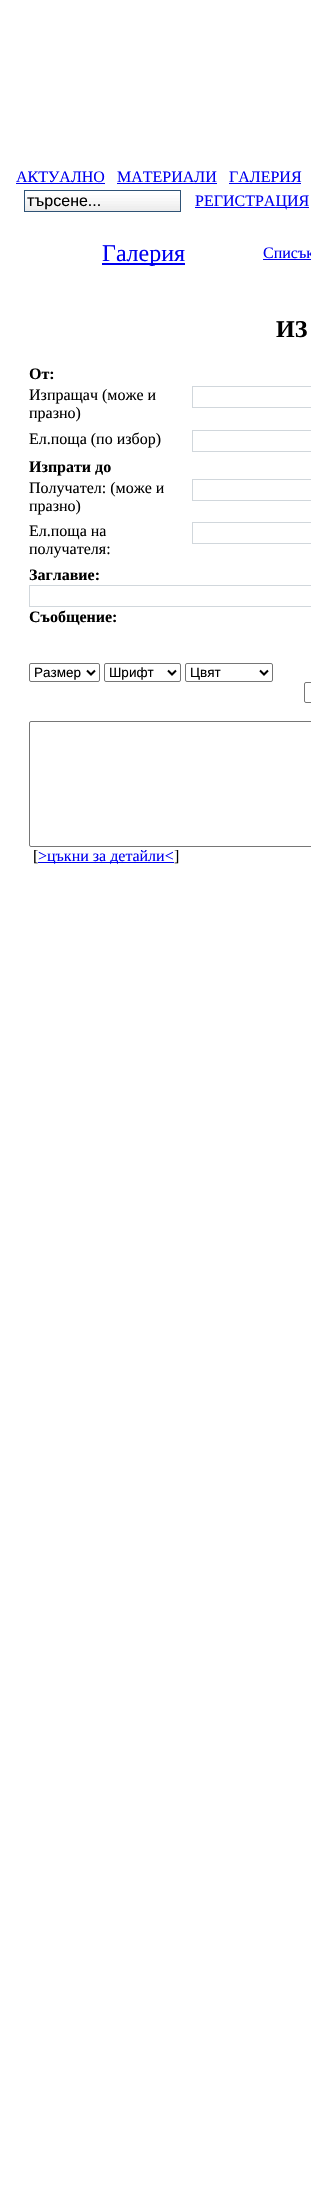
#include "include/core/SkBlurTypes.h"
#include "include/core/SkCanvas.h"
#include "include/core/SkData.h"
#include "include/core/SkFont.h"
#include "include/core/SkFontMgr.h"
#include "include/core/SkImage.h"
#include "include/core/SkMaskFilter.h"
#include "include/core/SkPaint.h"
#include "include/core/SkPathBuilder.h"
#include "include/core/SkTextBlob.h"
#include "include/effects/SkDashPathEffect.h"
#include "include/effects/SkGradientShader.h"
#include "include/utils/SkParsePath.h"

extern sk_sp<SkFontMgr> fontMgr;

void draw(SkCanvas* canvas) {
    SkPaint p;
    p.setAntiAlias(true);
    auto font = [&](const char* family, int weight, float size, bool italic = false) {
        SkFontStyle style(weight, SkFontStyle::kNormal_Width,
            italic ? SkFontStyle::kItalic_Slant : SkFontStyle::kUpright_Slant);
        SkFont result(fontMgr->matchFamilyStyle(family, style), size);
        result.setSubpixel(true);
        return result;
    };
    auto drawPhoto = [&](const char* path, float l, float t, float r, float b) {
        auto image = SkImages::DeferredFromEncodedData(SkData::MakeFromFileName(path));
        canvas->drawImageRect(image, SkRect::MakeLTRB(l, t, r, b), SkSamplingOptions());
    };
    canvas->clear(0xFFFFFFFF);
    auto font1 = font("Liberation Serif", 400, 16);
    p.setColor(0xFF0000EE);
    canvas->drawString("АКТУАЛНО", 16, 182, font1, p);
    canvas->drawRect(SkRect::MakeLTRB(16, 183, 105, 184), p);
    canvas->drawString("МАТЕРИАЛИ", 117, 182, font1, p);
    canvas->drawRect(SkRect::MakeLTRB(117, 183, 217, 184), p);
    canvas->drawString("ГАЛЕРИЯ", 229, 182, font1, p);
    canvas->drawRect(SkRect::MakeLTRB(229, 183, 301, 184), p);
    drawPhoto("media/1.png", 25, 191, 180, 211);
    p.setStyle(SkPaint::kStroke_Style);
    p.setStrokeWidth(1);
    p.setColor(0xFF2F5376);
    canvas->drawRect(SkRect::MakeLTRB(24.5f, 190.5f, 180.5f, 211.5f), p);
    auto font2 = font("Liberation Sans", 400, 16);
    p.setStyle(SkPaint::kFill_Style);
    p.setColor(0xFF000000);
    canvas->drawString("търсене...", 27, 206, font2, p);
    p.setColor(0xFF0000EE);
    canvas->drawRect(SkRect::MakeLTRB(195, 207, 309, 208), p);
    canvas->drawString("РЕГИСТРАЦИЯ", 195, 206, font1, p);
    canvas->drawRect(SkRect::MakeLTRB(102, 263, 185, 265), p);
    auto font3 = font("Liberation Serif", 400, 24);
    canvas->drawString("Галерия", 102, 261, font3, p);
    canvas->drawString("Списък", 263, 258, font1, p);
    canvas->drawRect(SkRect::MakeLTRB(263, 259, 311, 260), p);
    auto font4 = font("Liberation Serif", 700, 24);
    p.setColor(0xFF000000);
    canvas->drawString("ИЗ", 276, 337, font4, p);
    auto font5 = font("Liberation Serif", 700, 16);
    canvas->drawString("От:", 29, 379, font5, p);
    canvas->drawString("Изпращач (може и", 29, 400, font1, p);
    canvas->drawString("празно)", 29, 418, font1, p);
    p.setStyle(SkPaint::kStroke_Style);
    p.setColor(0xFFD1D7DC);
    canvas->drawRect(SkRect::MakeLTRB(192.5f, 386.5f, 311.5f, 407.5f), p);
    p.setStyle(SkPaint::kFill_Style);
    p.setColor(0xFF000000);
    canvas->drawString("Ел.поща (по избор)", 29, 444, font1, p);
    p.setStyle(SkPaint::kStroke_Style);
    p.setColor(0xFFD1D7DC);
    canvas->drawRect(SkRect::MakeLTRB(192.5f, 430.5f, 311.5f, 451.5f), p);
    p.setStyle(SkPaint::kFill_Style);
    p.setColor(0xFF000000);
    canvas->drawString("Изпрати до", 29, 472, font5, p);
    canvas->drawString("Получател: (може и", 29, 493, font1, p);
    canvas->drawString("празно)", 29, 511, font1, p);
    p.setStyle(SkPaint::kStroke_Style);
    p.setColor(0xFFD1D7DC);
    canvas->drawRect(SkRect::MakeLTRB(192.5f, 479.5f, 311.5f, 500.5f), p);
    p.setStyle(SkPaint::kFill_Style);
    p.setColor(0xFF000000);
    canvas->drawString("Ел.поща на", 29, 536, font1, p);
    canvas->drawString("получателя:", 29, 554, font1, p);
    p.setStyle(SkPaint::kStroke_Style);
    p.setColor(0xFFD1D7DC);
    canvas->drawRect(SkRect::MakeLTRB(192.5f, 522.5f, 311.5f, 543.5f), p);
    p.setStyle(SkPaint::kFill_Style);
    p.setColor(0xFF000000);
    canvas->drawString("Заглавие:", 29, 580, font5, p);
    p.setStyle(SkPaint::kStroke_Style);
    p.setColor(0xFFD1D7DC);
    canvas->drawRect(SkRect::MakeLTRB(29.5f, 585.5f, 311.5f, 606.5f), p);
    p.setStyle(SkPaint::kFill_Style);
    p.setColor(0xFF000000);
    canvas->drawString("Съобщение:", 29, 622, font5, p);
    p.setStyle(SkPaint::kStroke_Style);
    p.setColor(0xFF767676);
    canvas->drawRoundRect(SkRect::MakeLTRB(29.5f, 663.5f, 99.5f, 681.5f), 1.5f, 1.5f, p);
    p.setStrokeWidth(2);
    p.setColor(0xFF000000);
    canvas->drawPath(SkPathBuilder().moveTo(87, 670.5f).lineTo(91, 674.5f).lineTo(95, 670.5f).detach(), p);
    auto font6 = font("Liberation Sans", 400, 13.5f);
    p.setStyle(SkPaint::kFill_Style);
    canvas->drawString("Размер", 34, 677, font6, p);
    p.setStyle(SkPaint::kStroke_Style);
    p.setStrokeWidth(1);
    p.setColor(0xFF767676);
    canvas->drawRoundRect(SkRect::MakeLTRB(104.5f, 663.5f, 180.5f, 681.5f), 1.5f, 1.5f, p);
    p.setStrokeWidth(2);
    p.setColor(0xFF000000);
    canvas->drawPath(SkPathBuilder().moveTo(168, 670.5f).lineTo(172, 674.5f).lineTo(176, 670.5f).detach(), p);
    p.setStyle(SkPaint::kFill_Style);
    canvas->drawString("Шрифт", 109, 677, font6, p);
    p.setStyle(SkPaint::kStroke_Style);
    p.setStrokeWidth(1);
    p.setColor(0xFF767676);
    canvas->drawRoundRect(SkRect::MakeLTRB(185.5f, 663.5f, 272.5f, 681.5f), 1.5f, 1.5f, p);
    p.setStrokeWidth(2);
    p.setColor(0xFF000000);
    canvas->drawPath(SkPathBuilder().moveTo(260, 670.5f).lineTo(264, 674.5f).lineTo(268, 670.5f).detach(), p);
    p.setStyle(SkPaint::kFill_Style);
    canvas->drawString("Цвят", 190, 677, font6, p);
    p.setStyle(SkPaint::kStroke_Style);
    p.setStrokeWidth(1);
    p.setColor(0xFF767676);
    canvas->drawRoundRect(SkRect::MakeLTRB(304.5f, 682.5f, 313.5f, 702.5f), 1.5f, 1.5f, p);
    canvas->drawRoundRect(SkRect::MakeLTRB(29.5f, 721.5f, 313.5f, 846.5f), 1.5f, 1.5f, p);
    p.setStyle(SkPaint::kFill_Style);
    p.setColor(0xFF000000);
    canvas->drawString("[", 33, 861, font1, p);
    p.setColor(0xFF0000EE);
    canvas->drawRect(SkRect::MakeLTRB(38, 862, 174, 863), p);
    canvas->drawString(">цъкни за детайли<", 38, 861, font1, p);
    p.setColor(0xFF000000);
    canvas->drawString("]", 174, 861, font1, p);
}
